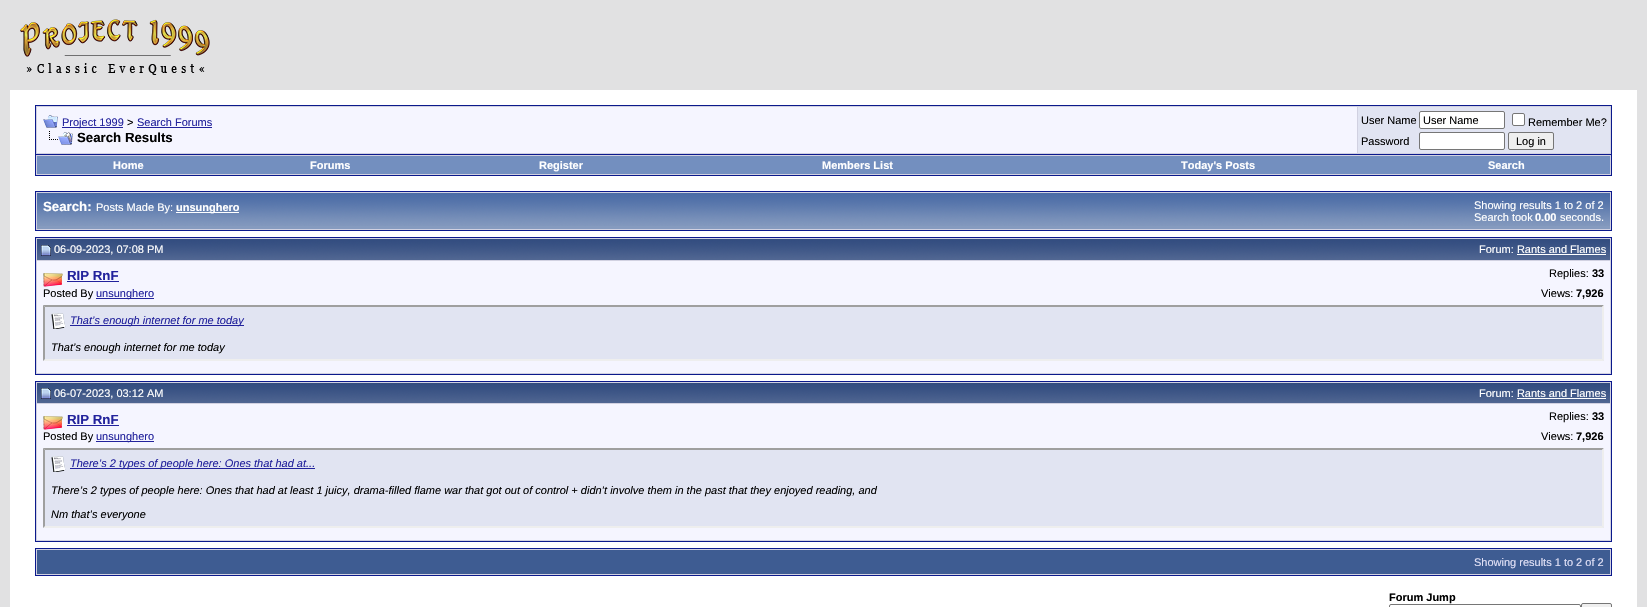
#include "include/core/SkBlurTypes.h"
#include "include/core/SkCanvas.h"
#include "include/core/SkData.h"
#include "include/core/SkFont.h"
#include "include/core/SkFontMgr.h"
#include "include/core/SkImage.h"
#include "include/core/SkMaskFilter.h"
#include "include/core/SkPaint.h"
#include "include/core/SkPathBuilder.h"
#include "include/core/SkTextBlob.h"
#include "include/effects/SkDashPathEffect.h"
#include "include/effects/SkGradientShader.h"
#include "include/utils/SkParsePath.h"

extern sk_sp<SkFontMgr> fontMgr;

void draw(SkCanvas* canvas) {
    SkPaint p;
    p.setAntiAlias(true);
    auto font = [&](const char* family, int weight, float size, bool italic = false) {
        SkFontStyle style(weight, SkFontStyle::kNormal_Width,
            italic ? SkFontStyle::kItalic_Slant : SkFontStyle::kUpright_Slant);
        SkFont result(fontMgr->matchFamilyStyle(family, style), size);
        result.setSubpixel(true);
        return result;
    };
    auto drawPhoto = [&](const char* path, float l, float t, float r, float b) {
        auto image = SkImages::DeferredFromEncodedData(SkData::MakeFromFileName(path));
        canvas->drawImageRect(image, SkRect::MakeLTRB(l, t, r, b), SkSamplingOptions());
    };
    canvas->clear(0xFFE1E1E2);
    drawPhoto("media/1.png", 20, 19, 210, 75);
    p.setColor(0xFFFFFFFF);
    canvas->drawRect(SkRect::MakeLTRB(10, 90, 1637, 607), p);
    p.setColor(0xFFD1D1E1);
    canvas->drawRect(SkRect::MakeLTRB(35.5f, 105.5f, 1611.5f, 154.5f), p);
    p.setStyle(SkPaint::kStroke_Style);
    p.setStrokeWidth(1);
    p.setColor(0xFF0B198C);
    canvas->drawRect(SkRect::MakeLTRB(35.5f, 105.5f, 1611.5f, 154.5f), p);
    p.setStyle(SkPaint::kFill_Style);
    p.setColor(0xFFF5F5FF);
    canvas->drawRect(SkRect::MakeLTRB(37, 107, 1357, 153), p);
    drawPhoto("media/2.png", 43, 115, 58, 128);
    p.setColor(0xFF22229C);
    canvas->drawRect(SkRect::MakeLTRB(62, 127, 123, 128), p);
    auto font1 = font("Liberation Sans", 400, 11);
    canvas->drawString("Project 1999", 62, 126, font1, p);
    p.setColor(0xFF000000);
    canvas->drawString(">", 127, 126, font1, p);
    p.setColor(0xFF22229C);
    canvas->drawString("Search Forums", 137, 126, font1, p);
    canvas->drawRect(SkRect::MakeLTRB(137, 127, 212, 128), p);
    drawPhoto("media/3.png", 49, 131, 73, 145);
    auto font2 = font("Liberation Sans", 700, 13.25f);
    p.setColor(0xFF000000);
    canvas->drawString("Search Results", 77, 142, font2, p);
    p.setColor(0xFFE1E4F2);
    canvas->drawRect(SkRect::MakeLTRB(1358, 107, 1610, 153), p);
    p.setColor(0xFF000000);
    canvas->drawString("User Name", 1361, 124, font1, p);
    p.setColor(0xFFFFFFFF);
    canvas->drawRoundRect(SkRect::MakeLTRB(1419.5f, 111.5f, 1504.5f, 128.5f), 1.5f, 1.5f, p);
    p.setStyle(SkPaint::kStroke_Style);
    p.setColor(0xFF767676);
    canvas->drawRoundRect(SkRect::MakeLTRB(1419.5f, 111.5f, 1504.5f, 128.5f), 1.5f, 1.5f, p);
    p.setStyle(SkPaint::kFill_Style);
    p.setColor(0xFF000000);
    canvas->drawString("User Name", 1423, 124, font1, p);
    p.setColor(0xFFFFFFFF);
    canvas->drawRoundRect(SkRect::MakeLTRB(1512.5f, 113.5f, 1524.5f, 125.5f), 1.5f, 1.5f, p);
    p.setStyle(SkPaint::kStroke_Style);
    p.setColor(0xFF767676);
    canvas->drawRoundRect(SkRect::MakeLTRB(1512.5f, 113.5f, 1524.5f, 125.5f), 1.5f, 1.5f, p);
    p.setStyle(SkPaint::kFill_Style);
    p.setColor(0xFF000000);
    canvas->drawString("Remember Me?", 1528, 126, font1, p);
    canvas->drawString("Password", 1361, 145, font1, p);
    p.setColor(0xFFFFFFFF);
    canvas->drawRoundRect(SkRect::MakeLTRB(1419.5f, 132.5f, 1504.5f, 149.5f), 1.5f, 1.5f, p);
    p.setStyle(SkPaint::kStroke_Style);
    p.setColor(0xFF767676);
    canvas->drawRoundRect(SkRect::MakeLTRB(1419.5f, 132.5f, 1504.5f, 149.5f), 1.5f, 1.5f, p);
    p.setStyle(SkPaint::kFill_Style);
    p.setColor(0xFFEFEFEF);
    canvas->drawRoundRect(SkRect::MakeLTRB(1508.5f, 132.5f, 1553.5f, 149.5f), 1.5f, 1.5f, p);
    p.setStyle(SkPaint::kStroke_Style);
    p.setColor(0xFF767676);
    canvas->drawRoundRect(SkRect::MakeLTRB(1508.5f, 132.5f, 1553.5f, 149.5f), 1.5f, 1.5f, p);
    p.setStyle(SkPaint::kFill_Style);
    p.setColor(0xFF000000);
    canvas->drawString("Log in", 1516, 145, font1, p);
    {
        const struct { float l, t, r, b; SkColor color; } items[] = {
            {36, 155, 1611, 175, 0xFFD1D1E1},
            {1611, 155, 1612, 176, 0xFF0B198C},
            {35, 175, 1612, 176, 0xFF0B198C},
            {35, 155, 36, 176, 0xFF0B198C},
            {37, 156, 1610, 174, 0xFF738FBF},
        };
        for (auto [l, t, r, b, color] : items) {
            p.setColor(color);
            canvas->drawRect(SkRect::MakeLTRB(l, t, r, b), p);
        }
    }
    auto font3 = font("Liberation Sans", 700, 11);
    p.setColor(0xFFFFFFFF);
    {
        const struct { const char* s; float x, y; } items[] = {
            {"Home", 113, 169},
            {"Forums", 310, 169},
            {"Register", 539, 169},
            {"Members List", 822, 169},
            {"Today's Posts", 1181, 169},
            {"Search", 1488, 169},
        };
        for (auto [s, x, y] : items) {
            canvas->drawString(s, x, y, font3, p);
        }
    }
    p.setColor(0xFFD1D1E1);
    canvas->drawRect(SkRect::MakeLTRB(35.5f, 191.5f, 1611.5f, 230.5f), p);
    p.setStyle(SkPaint::kStroke_Style);
    p.setColor(0xFF0B198C);
    canvas->drawRect(SkRect::MakeLTRB(35.5f, 191.5f, 1611.5f, 230.5f), p);
    p.setStyle(SkPaint::kFill_Style);
    p.setColor(0xFF869BBF);
    canvas->drawRect(SkRect::MakeLTRB(37, 226, 1610, 229), p);
    drawPhoto("media/4.png", 37, 193, 1610, 226);
    p.setColor(0xFFFFFFFF);
    canvas->drawString("Search:", 43, 211, font2, p);
    canvas->drawString("Posts Made By:", 96, 211, font1, p);
    canvas->drawRect(SkRect::MakeLTRB(176, 212, 239, 213), p);
    canvas->drawString("unsunghero", 176, 211, font3, p);
    canvas->drawString("Showing results 1 to 2 of 2", 1474, 209, font1, p);
    canvas->drawString("Search took", 1474, 221, font1, p);
    canvas->drawString("0.00", 1535, 221, font3, p);
    canvas->drawString("seconds.", 1560, 221, font1, p);
    p.setColor(0xFFD1D1E1);
    canvas->drawRect(SkRect::MakeLTRB(35.5f, 237.5f, 1611.5f, 374.5f), p);
    p.setStyle(SkPaint::kStroke_Style);
    p.setColor(0xFF0B198C);
    canvas->drawRect(SkRect::MakeLTRB(35.5f, 237.5f, 1611.5f, 374.5f), p);
    drawPhoto("media/5.png", 37, 239, 1610, 260);
    drawPhoto("media/6.png", 41, 245, 51, 256);
    p.setStyle(SkPaint::kFill_Style);
    p.setColor(0xFFFFFFFF);
    canvas->drawString("06-09-2023, 07:08 PM", 54, 253, font1, p);
    canvas->drawString("Forum: Rants and Flames", 1479, 253, font1, p);
    canvas->drawRect(SkRect::MakeLTRB(1517, 254, 1606, 255), p);
    p.setColor(0xFFF5F5FF);
    canvas->drawRect(SkRect::MakeLTRB(37, 261, 1610, 373), p);
    drawPhoto("media/7.png", 43, 273, 63, 287);
    p.setColor(0xFF22229C);
    canvas->drawString("RIP RnF", 67, 280, font2, p);
    canvas->drawRect(SkRect::MakeLTRB(67, 281, 119, 282), p);
    p.setColor(0xFF000000);
    canvas->drawString("Replies:", 1549, 277, font1, p);
    canvas->drawString("33", 1592, 277, font3, p);
    canvas->drawString("Posted By", 43, 297, font1, p);
    p.setColor(0xFF22229C);
    canvas->drawRect(SkRect::MakeLTRB(96, 298, 154, 299), p);
    canvas->drawString("unsunghero", 96, 297, font1, p);
    p.setColor(0xFF000000);
    canvas->drawString("Views:", 1541, 297, font1, p);
    canvas->drawString("7,926", 1576, 297, font3, p);
    p.setColor(0xFFE1E4F2);
    canvas->drawRect(SkRect::MakeLTRB(43, 305, 1604, 361), p);
    p.setColor(0xFF9F9F9F);
    canvas->drawPath(SkPathBuilder().moveTo(43, 305).lineTo(1604, 305).lineTo(1602, 307).lineTo(45, 307).close().detach(), p);
    p.setColor(0xFFEEEEEE);
    canvas->drawPath(SkPathBuilder().moveTo(1604, 305).lineTo(1604, 361).lineTo(1602, 359).lineTo(1602, 307).close().detach(), p);
    canvas->drawPath(SkPathBuilder().moveTo(1604, 361).lineTo(43, 361).lineTo(45, 359).lineTo(1602, 359).close().detach(), p);
    p.setColor(0xFF9F9F9F);
    canvas->drawPath(SkPathBuilder().moveTo(43, 361).lineTo(43, 305).lineTo(45, 307).lineTo(45, 359).close().detach(), p);
    drawPhoto("media/8.png", 51, 313, 66, 329);
    p.setColor(0xFF22229C);
    canvas->drawRect(SkRect::MakeLTRB(70, 325, 244, 326), p);
    auto font4 = font("Liberation Sans", 400, 11, true);
    canvas->drawString("That’s enough internet for me today", 70, 324, font4, p);
    p.setColor(0xFF000000);
    canvas->drawString("That’s enough internet for me today", 51, 351, font4, p);
    p.setColor(0xFFD1D1E1);
    canvas->drawRect(SkRect::MakeLTRB(35.5f, 381.5f, 1611.5f, 541.5f), p);
    p.setStyle(SkPaint::kStroke_Style);
    p.setColor(0xFF0B198C);
    canvas->drawRect(SkRect::MakeLTRB(35.5f, 381.5f, 1611.5f, 541.5f), p);
    drawPhoto("media/9.png", 37, 383, 1610, 403);
    drawPhoto("media/10.png", 41, 388, 51, 399);
    p.setStyle(SkPaint::kFill_Style);
    p.setColor(0xFFFFFFFF);
    canvas->drawString("06-07-2023, 03:12 AM", 54, 397, font1, p);
    canvas->drawString("Forum: Rants and Flames", 1479, 397, font1, p);
    canvas->drawRect(SkRect::MakeLTRB(1517, 398, 1606, 399), p);
    p.setColor(0xFFF5F5FF);
    canvas->drawRect(SkRect::MakeLTRB(37, 404, 1610, 540), p);
    drawPhoto("media/7.png", 43, 416, 63, 430);
    p.setColor(0xFF22229C);
    canvas->drawString("RIP RnF", 67, 424, font2, p);
    canvas->drawRect(SkRect::MakeLTRB(67, 425, 119, 426), p);
    p.setColor(0xFF000000);
    canvas->drawString("Replies:", 1549, 420, font1, p);
    canvas->drawString("33", 1592, 420, font3, p);
    canvas->drawString("Posted By", 43, 440, font1, p);
    p.setColor(0xFF22229C);
    canvas->drawRect(SkRect::MakeLTRB(96, 441, 154, 442), p);
    canvas->drawString("unsunghero", 96, 440, font1, p);
    p.setColor(0xFF000000);
    canvas->drawString("Views:", 1541, 440, font1, p);
    canvas->drawString("7,926", 1576, 440, font3, p);
    p.setColor(0xFFE1E4F2);
    canvas->drawRect(SkRect::MakeLTRB(43, 448, 1604, 528), p);
    p.setColor(0xFF9F9F9F);
    canvas->drawPath(SkPathBuilder().moveTo(43, 448).lineTo(1604, 448).lineTo(1602, 450).lineTo(45, 450).close().detach(), p);
    p.setColor(0xFFEEEEEE);
    canvas->drawPath(SkPathBuilder().moveTo(1604, 448).lineTo(1604, 528).lineTo(1602, 526).lineTo(1602, 450).close().detach(), p);
    canvas->drawPath(SkPathBuilder().moveTo(1604, 528).lineTo(43, 528).lineTo(45, 526).lineTo(1602, 526).close().detach(), p);
    p.setColor(0xFF9F9F9F);
    canvas->drawPath(SkPathBuilder().moveTo(43, 528).lineTo(43, 448).lineTo(45, 450).lineTo(45, 526).close().detach(), p);
    drawPhoto("media/8.png", 51, 456, 66, 472);
    p.setColor(0xFF22229C);
    canvas->drawRect(SkRect::MakeLTRB(70, 468, 315, 469), p);
    canvas->drawString("There’s 2 types of people here: Ones that had at...", 70, 467, font4, p);
    p.setColor(0xFF000000);
    canvas->drawString("There’s 2 types of people here: Ones that had at least 1 juicy, drama-filled flame war that got out of control + didn’t involve them in the past that they enjoyed reading, and", 51, 494, font4, p);
    canvas->drawString("Nm that’s everyone", 51, 518, font4, p);
    p.setColor(0xFFD1D1E1);
    canvas->drawRect(SkRect::MakeLTRB(35.5f, 548.5f, 1611.5f, 575.5f), p);
    p.setStyle(SkPaint::kStroke_Style);
    p.setColor(0xFF0B198C);
    canvas->drawRect(SkRect::MakeLTRB(35.5f, 548.5f, 1611.5f, 575.5f), p);
    p.setStyle(SkPaint::kFill_Style);
    p.setColor(0xFF3E5C92);
    canvas->drawRect(SkRect::MakeLTRB(37, 550, 1610, 574), p);
    p.setColor(0xFFE0E0F6);
    canvas->drawString("Showing results 1 to 2 of 2", 1474, 566, font1, p);
    p.setColor(0xFF000000);
    canvas->drawString("Forum Jump", 1389, 601, font3, p);
    p.setStyle(SkPaint::kStroke_Style);
    p.setColor(0xFF767676);
    canvas->drawRoundRect(SkRect::MakeLTRB(1389.5f, 604.5f, 1580.5f, 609.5f), 1.5f, 1.5f, p);
    p.setStyle(SkPaint::kFill_Style);
    p.setColor(0xFFEFEFEF);
    canvas->drawRoundRect(SkRect::MakeLTRB(1581.5f, 603.5f, 1611.5f, 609.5f), 1.5f, 1.5f, p);
    p.setStyle(SkPaint::kStroke_Style);
    p.setColor(0xFF767676);
    canvas->drawRoundRect(SkRect::MakeLTRB(1581.5f, 603.5f, 1611.5f, 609.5f), 1.5f, 1.5f, p);
}
